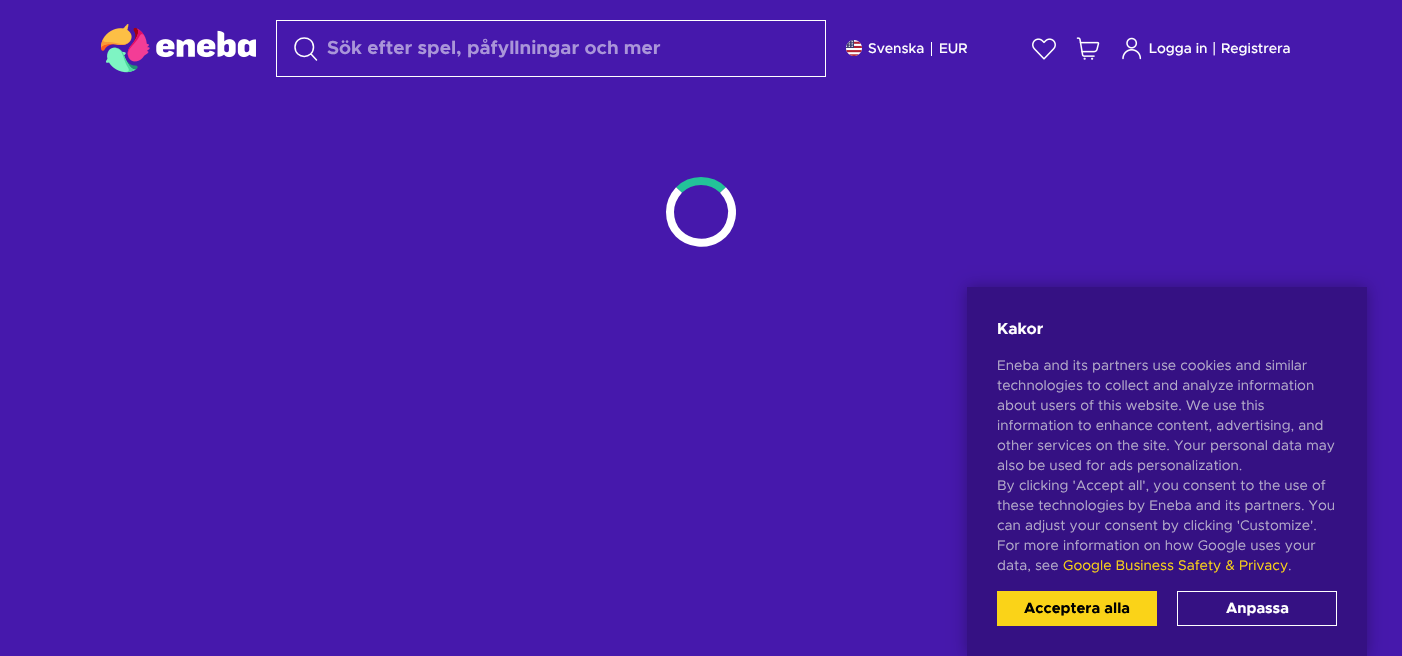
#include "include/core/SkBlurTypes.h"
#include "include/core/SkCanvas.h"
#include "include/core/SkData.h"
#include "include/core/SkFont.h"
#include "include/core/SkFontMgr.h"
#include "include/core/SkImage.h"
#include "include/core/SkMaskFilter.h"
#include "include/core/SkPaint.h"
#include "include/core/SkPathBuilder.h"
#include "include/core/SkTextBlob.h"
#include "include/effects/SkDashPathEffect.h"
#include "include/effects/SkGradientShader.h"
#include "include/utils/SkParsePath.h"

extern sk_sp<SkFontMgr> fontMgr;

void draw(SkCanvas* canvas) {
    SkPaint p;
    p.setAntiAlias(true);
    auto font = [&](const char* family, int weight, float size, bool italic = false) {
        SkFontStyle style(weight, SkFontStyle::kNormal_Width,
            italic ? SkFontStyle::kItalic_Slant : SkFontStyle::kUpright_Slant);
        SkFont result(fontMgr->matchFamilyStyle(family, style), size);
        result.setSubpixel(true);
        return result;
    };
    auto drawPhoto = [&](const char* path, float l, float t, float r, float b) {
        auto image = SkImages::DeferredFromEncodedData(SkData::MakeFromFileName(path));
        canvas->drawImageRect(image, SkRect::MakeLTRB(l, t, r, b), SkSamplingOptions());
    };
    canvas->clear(0xFF4618AC);
    drawPhoto("media/1.png", 101, 24, 256, 73);
    p.setStyle(SkPaint::kStroke_Style);
    p.setStrokeWidth(1.5f);
    p.setStrokeCap(SkPaint::kRound_Cap);
    p.setStrokeJoin(SkPaint::kRound_Join);
    p.setColor(0xFFFFFFFF);
    canvas->drawPath(SkPathBuilder().moveTo(311, 54).lineTo(316.5f, 60).moveTo(295, 47).cubicTo(295, 59.5f, 313.5f, 59.5f, 313.5f, 47).cubicTo(313.5f, 35, 295, 35, 295, 47).close().detach(), p);
    p.setStrokeWidth(1);
    p.setStrokeCap(SkPaint::kButt_Cap);
    p.setStrokeJoin(SkPaint::kMiter_Join);
    canvas->drawRect(SkRect::MakeLTRB(276.5f, 20.5f, 825.5f, 76.5f), p);
    auto font1 = font("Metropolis", 700, 19);
    p.setStyle(SkPaint::kFill_Style);
    p.setColor(0xFFAA95D9);
    canvas->drawString("Sök efter spel, påfyllningar och mer", 327, 54, font1, p);
    drawPhoto("media/2.png", 846, 40, 862, 56);
    auto font2 = font("Metropolis", 500, 14);
    p.setColor(0xFFFFFFFF);
    canvas->drawString("Svenska", 868, 53, font2, p);
    canvas->drawRect(SkRect::MakeLTRB(931, 42, 932, 56), p);
    canvas->drawString("EUR", 939, 53, font2, p);
    drawPhoto("media/3.png", 1032, 38, 1056, 60);
    drawPhoto("media/4.png", 1076, 37, 1100, 60);
    drawPhoto("media/5.png", 1122, 37, 1142, 60);
    canvas->drawString("Logga in", 1149, 53, font2, p);
    auto font3 = font("Metropolis", 400, 16);
    canvas->drawString("|", 1212, 54, font3, p);
    canvas->drawString("Registrera", 1221, 53, font2, p);
    p.setStyle(SkPaint::kStroke_Style);
    p.setStrokeWidth(8);
    p.setColor(0xFF23C299);
    canvas->drawPath(SkPathBuilder().moveTo(679, 190).cubicTo(691, 178, 711, 178, 723, 190).detach(), p);
    p.setColor(0xFFFFFFFF);
    canvas->drawPath(SkPathBuilder().moveTo(723, 190).cubicTo(730, 197.5f, 733.5f, 208, 731.5f, 218).cubicTo(724, 254.5f, 670, 249, 670, 212).cubicTo(670, 204, 673.5f, 196, 679, 190).detach(), p);
    p.setStyle(SkPaint::kFill_Style);
    p.setColor(0x4D000000);
    p.setMaskFilter(SkMaskFilter::MakeBlur(kNormal_SkBlurStyle, 7.5f));
    canvas->drawRect(SkRect::MakeLTRB(967, 287, 1367, 656), p);
    p.setMaskFilter(nullptr);
    p.setColor(0xFF351183);
    canvas->drawRect(SkRect::MakeLTRB(967, 287, 1367, 656), p);
    auto font4 = font("Metropolis", 700, 16);
    p.setColor(0xFFFFFFFF);
    canvas->drawString("Kakor", 997, 334, font4, p);
    auto font5 = font("Metropolis", 400, 14);
    p.setColor(0xFFB3AAC9);
    {
        const struct { const char* s; float x, y; } items[] = {
            {"Eneba and its partners use cookies and similar", 997, 370},
            {"technologies to collect and analyze information", 997, 390},
            {"about users of this website. We use this", 997, 410},
            {"information to enhance content, advertising, and", 997, 430},
            {"other services on the site. Your personal data may", 997, 450},
            {"also be used for ads personalization.", 997, 470},
            {"By clicking 'Accept all', you consent to the use of", 997, 490},
            {"these technologies by Eneba and its partners. You", 997, 510},
            {"can adjust your consent by clicking 'Customize'.", 997, 530},
            {"For more information on how Google uses your", 997, 550},
            {"data, see", 997, 570},
        };
        for (auto [s, x, y] : items) {
            canvas->drawString(s, x, y, font5, p);
        }
    }
    p.setColor(0xFFFAD318);
    canvas->drawString("Google Business Safety & Privacy", 1063, 570, font5, p);
    p.setColor(0xFFB3AAC9);
    canvas->drawString(".", 1288, 570, font5, p);
    p.setColor(0xFFFAD318);
    canvas->drawRect(SkRect::MakeLTRB(997, 591, 1157, 626), p);
    auto font6 = font("Metropolis", 700, 15);
    p.setColor(0xFF000000);
    canvas->drawString("Acceptera alla", 1024, 613, font6, p);
    p.setStyle(SkPaint::kStroke_Style);
    p.setStrokeWidth(1);
    p.setColor(0xFFFFFFFF);
    canvas->drawRect(SkRect::MakeLTRB(1177.5f, 591.5f, 1336.5f, 625.5f), p);
    p.setStyle(SkPaint::kFill_Style);
    canvas->drawString("Anpassa", 1226, 613, font6, p);
}
